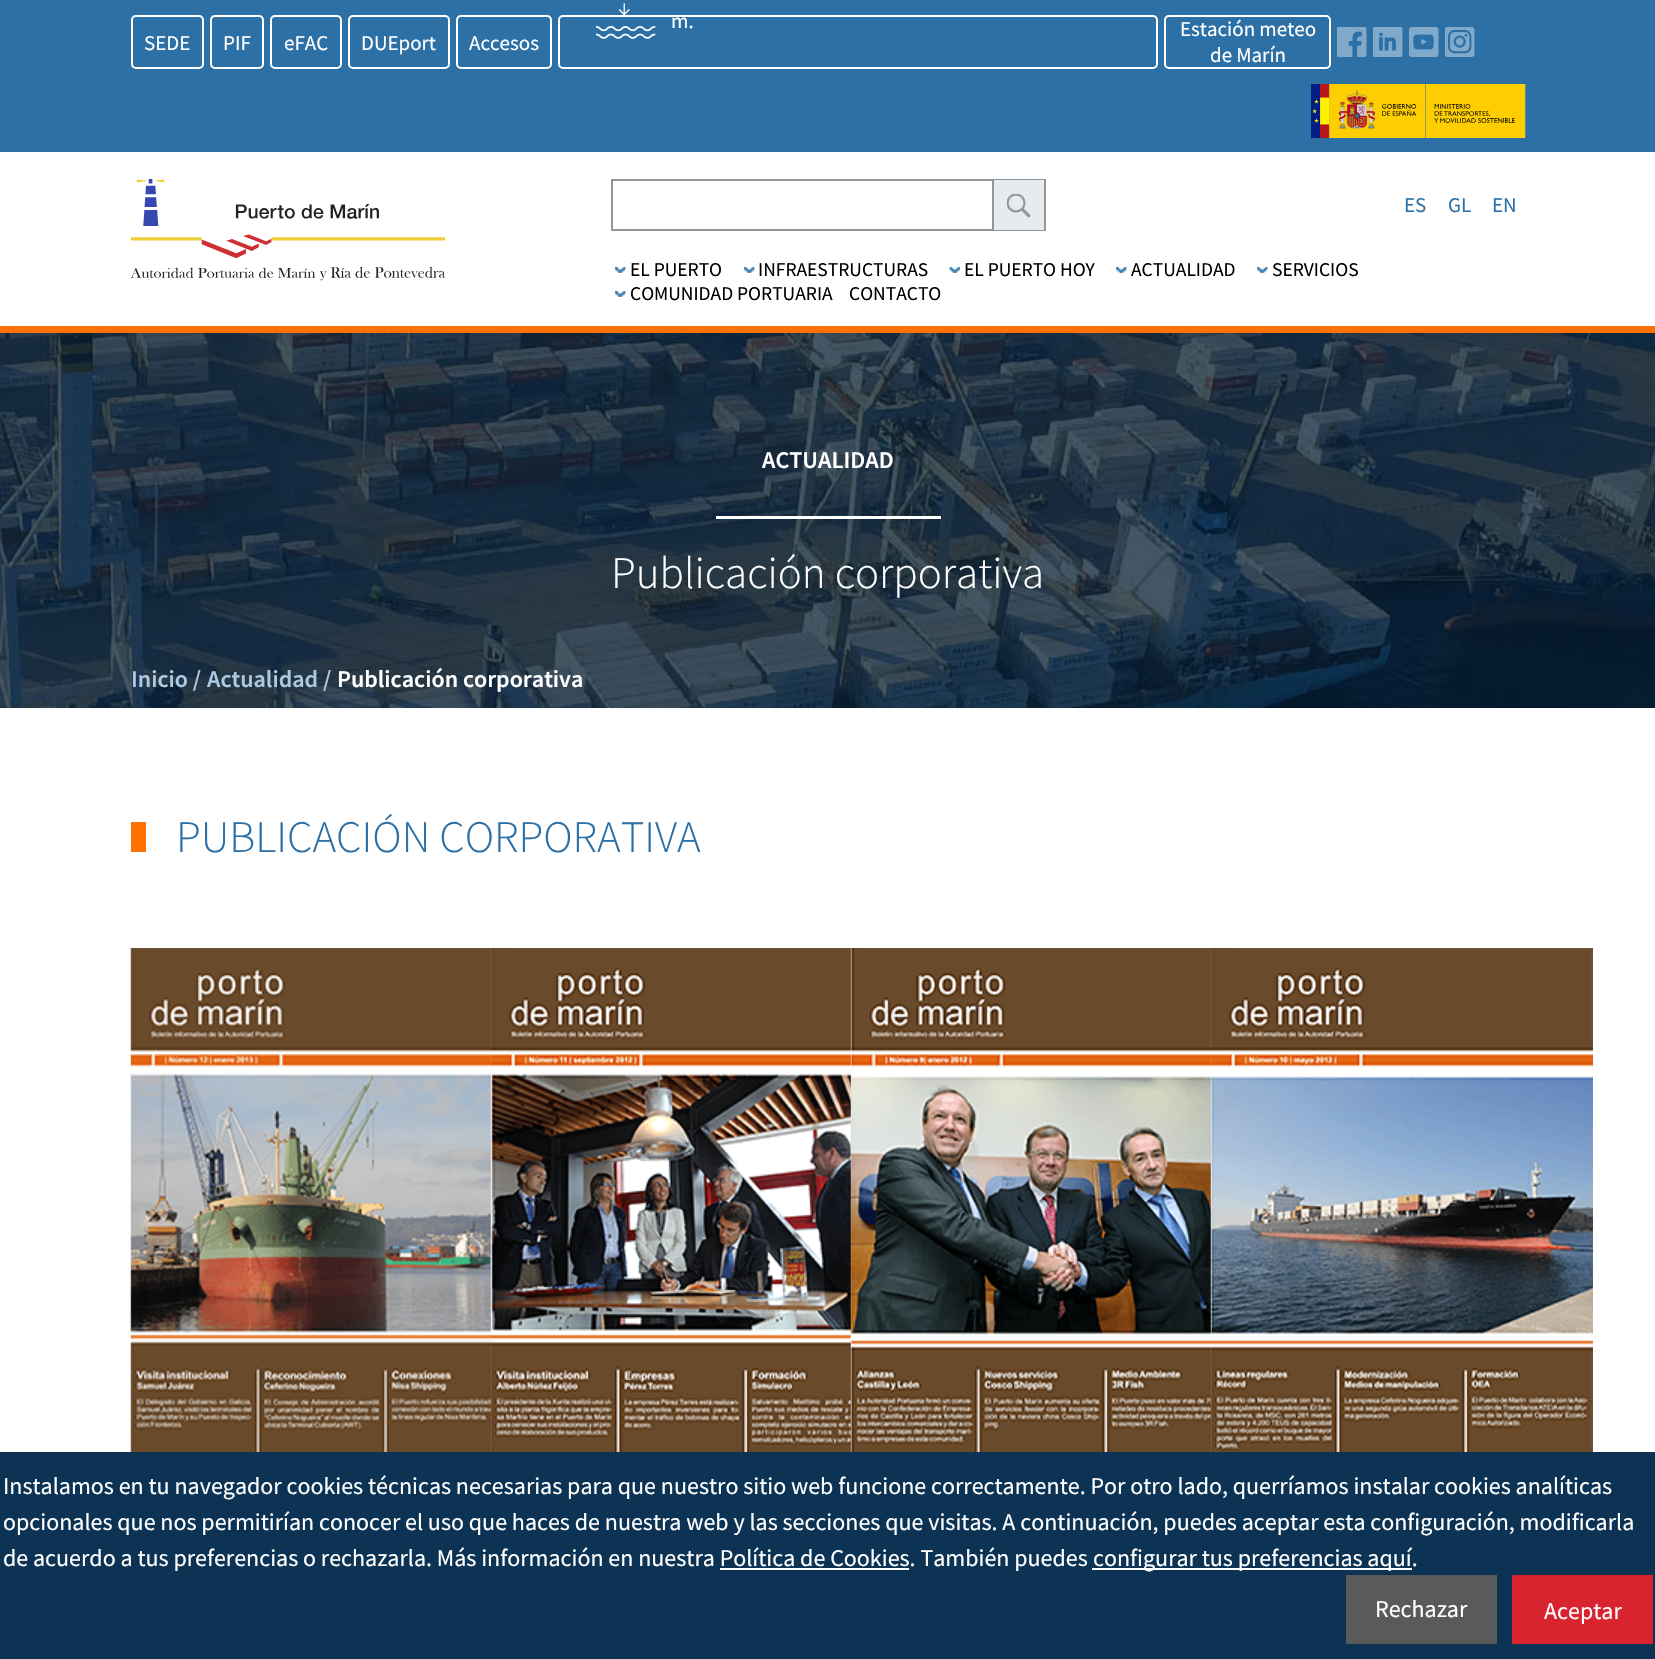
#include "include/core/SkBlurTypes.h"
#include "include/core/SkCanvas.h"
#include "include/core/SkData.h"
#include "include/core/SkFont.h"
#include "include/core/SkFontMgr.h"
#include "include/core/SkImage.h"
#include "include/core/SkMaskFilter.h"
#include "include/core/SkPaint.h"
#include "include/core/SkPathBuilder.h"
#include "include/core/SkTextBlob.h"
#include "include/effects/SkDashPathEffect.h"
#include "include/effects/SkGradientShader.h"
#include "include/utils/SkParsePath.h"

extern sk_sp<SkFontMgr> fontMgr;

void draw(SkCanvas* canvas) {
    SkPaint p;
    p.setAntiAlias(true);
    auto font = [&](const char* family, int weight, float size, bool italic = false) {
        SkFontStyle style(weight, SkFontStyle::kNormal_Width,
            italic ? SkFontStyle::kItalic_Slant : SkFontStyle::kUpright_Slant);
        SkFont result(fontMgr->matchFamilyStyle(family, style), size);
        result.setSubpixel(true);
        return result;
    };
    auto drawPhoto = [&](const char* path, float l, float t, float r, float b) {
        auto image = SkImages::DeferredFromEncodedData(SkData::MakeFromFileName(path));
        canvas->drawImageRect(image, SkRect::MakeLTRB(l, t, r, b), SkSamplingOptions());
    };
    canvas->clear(0xFFFFFFFF);
    p.setColor(0xFF2C70A6);
    canvas->drawRect(SkRect::MakeLTRB(0, 0, 1655, 152), p);
    p.setStyle(SkPaint::kStroke_Style);
    p.setStrokeWidth(2);
    p.setColor(0xFFFFFFFF);
    canvas->drawRoundRect(SkRect::MakeLTRB(132, 16, 203, 68), 4, 4, p);
    auto font1 = font("Source Sans Pro", 400, 21);
    p.setStyle(SkPaint::kFill_Style);
    canvas->drawString("SEDE", 144, 50, font1, p);
    p.setStyle(SkPaint::kStroke_Style);
    canvas->drawRoundRect(SkRect::MakeLTRB(211, 16, 263, 68), 4, 4, p);
    p.setStyle(SkPaint::kFill_Style);
    canvas->drawString("PIF", 223, 50, font1, p);
    p.setStyle(SkPaint::kStroke_Style);
    canvas->drawRoundRect(SkRect::MakeLTRB(271, 16, 341, 68), 4, 4, p);
    p.setStyle(SkPaint::kFill_Style);
    canvas->drawString("eFAC", 284, 50, font1, p);
    p.setStyle(SkPaint::kStroke_Style);
    canvas->drawRoundRect(SkRect::MakeLTRB(349, 16, 449, 68), 4, 4, p);
    p.setStyle(SkPaint::kFill_Style);
    canvas->drawString("DUEport", 361, 50, font1, p);
    p.setStyle(SkPaint::kStroke_Style);
    canvas->drawRoundRect(SkRect::MakeLTRB(457, 16, 551, 68), 4, 4, p);
    p.setStyle(SkPaint::kFill_Style);
    canvas->drawString("Accesos", 469, 50, font1, p);
    p.setStyle(SkPaint::kStroke_Style);
    canvas->drawRoundRect(SkRect::MakeLTRB(559, 16, 1157, 68), 4, 4, p);
    drawPhoto("media/1.png", 596, 3, 656, 39);
    p.setStyle(SkPaint::kFill_Style);
    canvas->drawString("m.", 671, 28, font1, p);
    p.setStyle(SkPaint::kStroke_Style);
    canvas->drawRoundRect(SkRect::MakeLTRB(1165, 16, 1330, 68), 4, 4, p);
    p.setStyle(SkPaint::kFill_Style);
    canvas->drawString("Estación meteo", 1180, 36, font1, p);
    canvas->drawString("de Marín", 1210, 62, font1, p);
    drawPhoto("media/2.png", 1337, 27, 1367, 57);
    drawPhoto("media/3.png", 1373, 27, 1403, 57);
    drawPhoto("media/4.png", 1409, 27, 1439, 57);
    drawPhoto("media/5.png", 1445, 27, 1475, 57);
    drawPhoto("media/6.png", 1311, 84, 1526, 138);
    p.setColor(0xFFFF7100);
    canvas->drawRect(SkRect::MakeLTRB(0, 326, 1655, 333), p);
    drawPhoto("media/7.png", 131, 179, 446, 281);
    p.setStyle(SkPaint::kStroke_Style);
    p.setColor(0xFF969696);
    canvas->drawRect(SkRect::MakeLTRB(612, 180, 1045, 230), p);
    p.setStyle(SkPaint::kFill_Style);
    p.setColor(0xFFE6EBF0);
    canvas->drawRect(SkRect::MakeLTRB(994, 180, 1044, 230), p);
    p.setColor(0xFF969696);
    canvas->drawRect(SkRect::MakeLTRB(992, 180, 994, 230), p);
    drawPhoto("media/8.png", 1007, 194, 1031, 218);
    p.setColor(0xFF2C70A6);
    {
        const struct { const char* s; float x, y; } items[] = {
            {"ES", 1404, 212},
            {"GL", 1448, 212},
            {"EN", 1492, 212},
        };
        for (auto [s, x, y] : items) {
            canvas->drawString(s, x, y, font1, p);
        }
    }
    drawPhoto("media/9.png", 615, 267, 626, 273);
    auto font2 = font("Source Sans Pro", 400, 19.5f);
    p.setColor(0xFF000000);
    canvas->drawString("EL PUERTO", 630, 276, font2, p);
    drawPhoto("media/10.png", 744, 267, 755, 273);
    canvas->drawString("INFRAESTRUCTURAS", 758, 276, font2, p);
    drawPhoto("media/11.png", 949, 267, 960, 273);
    canvas->drawString("EL PUERTO HOY", 964, 276, font2, p);
    drawPhoto("media/10.png", 1116, 267, 1127, 273);
    canvas->drawString("ACTUALIDAD", 1131, 276, font2, p);
    drawPhoto("media/10.png", 1257, 267, 1268, 273);
    canvas->drawString("SERVICIOS", 1272, 276, font2, p);
    drawPhoto("media/9.png", 615, 291, 626, 297);
    canvas->drawString("COMUNIDAD PORTUARIA", 630, 300, font2, p);
    canvas->drawString("CONTACTO", 849, 300, font2, p);
    drawPhoto("media/12.png", 0, 333, 1655, 708);
    auto font3 = font("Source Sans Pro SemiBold", 600, 24);
    p.setColor(0xFFFFFFFF);
    canvas->drawString("ACTUALIDAD", 762, 468, font3, p);
    canvas->drawRect(SkRect::MakeLTRB(716, 516, 941, 519), p);
    auto font4 = font("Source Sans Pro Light", 300, 45);
    canvas->drawString("Publicación corporativa", 611, 588, font4, p);
    p.setColor(0xFFABC9E1);
    canvas->drawString("Inicio /", 131, 687, font3, p);
    canvas->drawString("Actualidad /", 207, 687, font3, p);
    p.setColor(0xFFFFFFFF);
    canvas->drawString("Publicación corporativa", 337, 687, font3, p);
    p.setColor(0xFFFF7100);
    canvas->drawRect(SkRect::MakeLTRB(131, 822, 146, 852), p);
    p.setColor(0xFF2C70A6);
    canvas->drawString("PUBLICACIÓN CORPORATIVA", 176, 852, font4, p);
    drawPhoto("media/13.png", 130, 948, 513, 1452);
    drawPhoto("media/14.png", 490, 948, 873, 1452);
    drawPhoto("media/15.png", 850, 948, 1233, 1452);
    drawPhoto("media/16.png", 1210, 948, 1593, 1452);
    p.setColor(0xFF0C3353);
    canvas->drawRect(SkRect::MakeLTRB(0, 1452, 1655, 1659), p);
    auto font5 = font("Source Sans Pro", 400, 24);
    p.setColor(0xFFFFFFFF);
    {
        const struct { const char* s; float x, y; } items[] = {
            {"Instalamos en tu navegador cookies técnicas necesarias para que nuestro sitio web funcione correctamente. Por otro lado, querríamos instalar cookies analíticas", 3, 1494},
            {"opcionales que nos permitirían conocer el uso que haces de nuestra web y las secciones que visitas. A continuación, puedes aceptar esta configuración, modificarla", 3, 1530},
            {"de acuerdo a tus preferencias o rechazarla. Más información en nuestra Política de Cookies. También puedes", 3, 1566},
        };
        for (auto [s, x, y] : items) {
            canvas->drawString(s, x, y, font5, p);
        }
    }
    canvas->drawRect(SkRect::MakeLTRB(1092, 1568, 1412, 1570), p);
    canvas->drawString("configurar tus preferencias aquí.", 1093, 1566, font5, p);
    canvas->drawRect(SkRect::MakeLTRB(720, 1568, 909, 1570), p);
    p.setColor(0xFF5A5A5A);
    canvas->drawRect(SkRect::MakeLTRB(1346, 1575, 1497, 1644), p);
    p.setColor(0xFFFFFFFF);
    canvas->drawString("Rechazar", 1375, 1617, font5, p);
    p.setColor(0xFFD9232E);
    canvas->drawRect(SkRect::MakeLTRB(1512, 1575, 1653, 1644), p);
    p.setColor(0xFFFFFFFF);
    canvas->drawString("Aceptar", 1544, 1619, font5, p);
}
